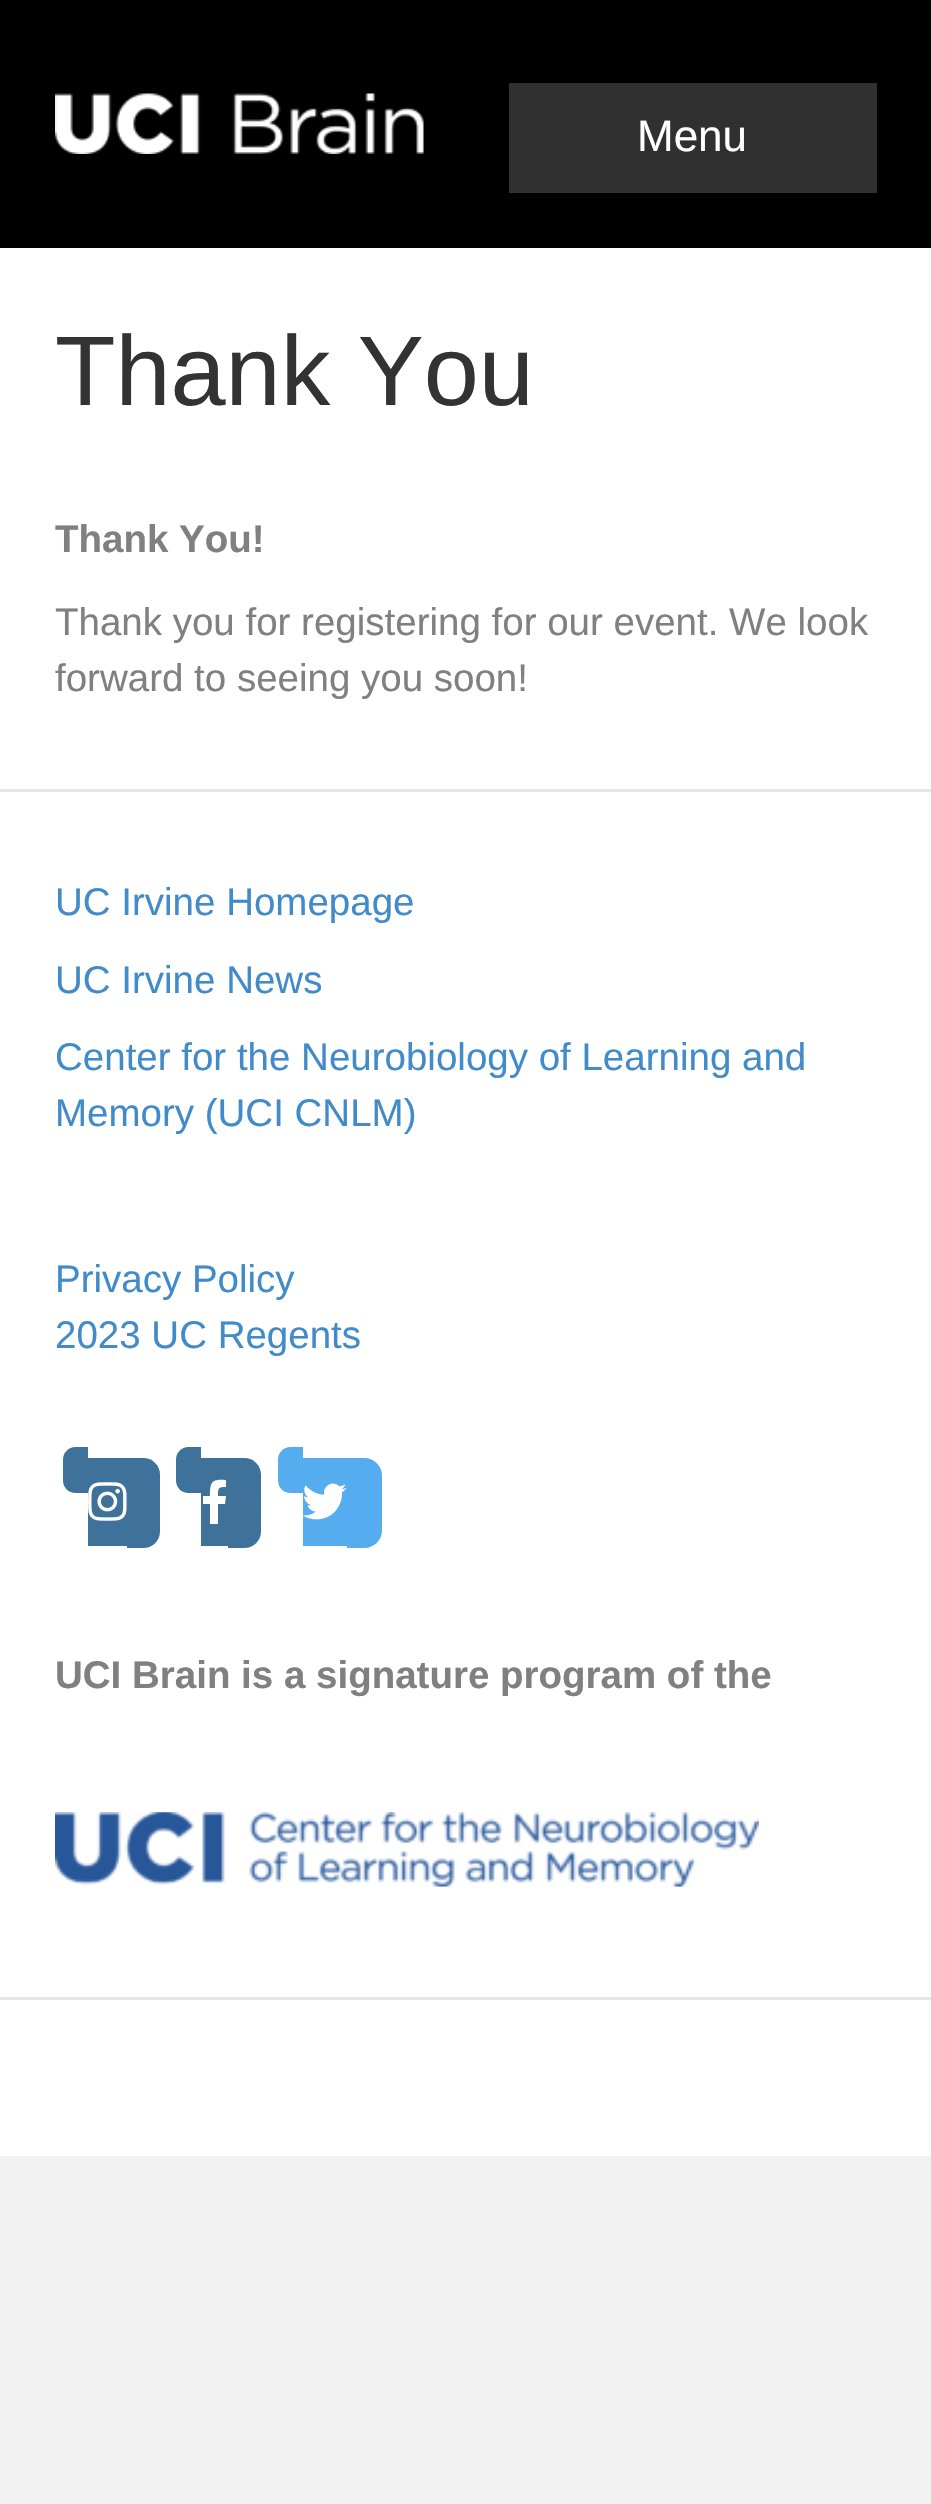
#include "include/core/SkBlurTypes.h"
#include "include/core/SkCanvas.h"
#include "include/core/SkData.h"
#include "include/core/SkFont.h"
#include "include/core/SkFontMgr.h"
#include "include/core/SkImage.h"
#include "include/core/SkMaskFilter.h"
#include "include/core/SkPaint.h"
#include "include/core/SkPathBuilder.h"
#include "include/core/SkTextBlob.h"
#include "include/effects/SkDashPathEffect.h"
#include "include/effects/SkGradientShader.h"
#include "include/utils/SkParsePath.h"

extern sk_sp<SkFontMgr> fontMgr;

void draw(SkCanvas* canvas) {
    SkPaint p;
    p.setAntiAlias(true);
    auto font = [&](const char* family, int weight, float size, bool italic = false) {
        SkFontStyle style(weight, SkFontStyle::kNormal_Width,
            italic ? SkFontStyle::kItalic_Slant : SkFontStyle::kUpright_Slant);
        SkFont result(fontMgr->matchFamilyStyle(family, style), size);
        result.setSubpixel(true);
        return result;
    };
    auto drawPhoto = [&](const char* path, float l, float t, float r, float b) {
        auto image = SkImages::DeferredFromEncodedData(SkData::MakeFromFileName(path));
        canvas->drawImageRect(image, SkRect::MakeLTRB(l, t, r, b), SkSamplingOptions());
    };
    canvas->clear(0xFFF2F2F2);
    p.setColor(0xFF000000);
    canvas->drawRect(SkRect::MakeLTRB(0, 0, 931, 248), p);
    drawPhoto("media/1.png", 55, 93, 424, 154);
    p.setColor(0xFF303030);
    canvas->drawRect(SkRect::MakeLTRB(509, 83, 877, 193), p);
    auto font1 = font("Liberation Sans", 400, 44);
    p.setColor(0xFFFFFFFF);
    canvas->drawString("Menu", 637, 151, font1, p);
    canvas->drawRect(SkRect::MakeLTRB(0, 248, 931, 789), p);
    auto font2 = font("Liberation Sans", 400, 99);
    p.setColor(0xFF333333);
    canvas->drawString("Thank You", 55, 405, font2, p);
    auto font3 = font("Liberation Sans", 700, 38.5f);
    p.setColor(0xFF808080);
    canvas->drawString("Thank You!", 55, 552, font3, p);
    auto font4 = font("Liberation Sans", 400, 38.5f);
    canvas->drawString("Thank you for registering for our event. We look", 55, 635, font4, p);
    canvas->drawString("forward to seeing you soon!", 55, 691, font4, p);
    p.setColor(0xFFFFFFFF);
    canvas->drawRect(SkRect::MakeLTRB(0, 792, 931, 1997), p);
    p.setColor(0xFFE6E6E6);
    canvas->drawRect(SkRect::MakeLTRB(0, 789, 931, 792), p);
    p.setColor(0xFF428BCA);
    {
        const struct { const char* s; float x, y; } items[] = {
            {"UC Irvine Homepage", 55, 915},
            {"UC Irvine News", 55, 993},
            {"Center for the Neurobiology of Learning and", 55, 1070},
            {"Memory (UCI CNLM)", 55, 1126},
            {"Privacy Policy", 55, 1292},
            {"2023 UC Regents", 55, 1348},
        };
        for (auto [s, x, y] : items) {
            canvas->drawString(s, x, y, font4, p);
        }
    }
    p.setColor(0xFF3F729B);
    canvas->drawPath(SkPathBuilder().moveTo(75.5f, 1447).lineTo(88, 1447).lineTo(88, 1493).lineTo(75.5f, 1493).cubicTo(68.5f, 1493, 63, 1487.5f, 63, 1480.5f).lineTo(63, 1459.5f).cubicTo(63, 1452.5f, 68.5f, 1447, 75.5f, 1447).close().detach(), p);
    canvas->drawRect(SkRect::MakeLTRB(88, 1458, 127, 1546), p);
    canvas->drawPath(SkPathBuilder().moveTo(127, 1458).lineTo(143.5f, 1458).cubicTo(152.5f, 1458, 160, 1465.5f, 160, 1474.5f).lineTo(160, 1531.5f).cubicTo(160, 1540.5f, 152.5f, 1548, 143.5f, 1548).lineTo(127, 1548).close().detach(), p);
    drawPhoto("media/2.png", 88, 1482, 127, 1521);
    canvas->drawPath(SkPathBuilder().moveTo(188.5f, 1447).lineTo(201, 1447).lineTo(201, 1493).lineTo(188.5f, 1493).cubicTo(181.5f, 1493, 176, 1487.5f, 176, 1480.5f).lineTo(176, 1459.5f).cubicTo(176, 1452.5f, 181.5f, 1447, 188.5f, 1447).close().detach(), p);
    canvas->drawRect(SkRect::MakeLTRB(201, 1458, 228, 1546), p);
    canvas->drawPath(SkPathBuilder().moveTo(228, 1458).lineTo(244.5f, 1458).cubicTo(253.5f, 1458, 261, 1465.5f, 261, 1474.5f).lineTo(261, 1531.5f).cubicTo(261, 1540.5f, 253.5f, 1548, 244.5f, 1548).lineTo(228, 1548).close().detach(), p);
    p.setColor(0xFFFFFFFF);
    canvas->drawPath(SkPathBuilder().moveTo(225, 1504).lineTo(218, 1504).lineTo(218, 1524).lineTo(210, 1524).lineTo(210, 1504).lineTo(203, 1504).lineTo(203, 1496).lineTo(210, 1496).cubicTo(210, 1481, 212, 1479, 226, 1480).lineTo(226, 1487).cubicTo(218, 1487, 218, 1488, 218, 1496).lineTo(226, 1496).close().detach(), p);
    p.setColor(0xFF55ACEE);
    canvas->drawPath(SkPathBuilder().moveTo(290.5f, 1447).lineTo(303, 1447).lineTo(303, 1493).lineTo(290.5f, 1493).cubicTo(283.5f, 1493, 278, 1487.5f, 278, 1480.5f).lineTo(278, 1459.5f).cubicTo(278, 1452.5f, 283.5f, 1447, 290.5f, 1447).close().detach(), p);
    canvas->drawRect(SkRect::MakeLTRB(303, 1458, 347, 1546), p);
    canvas->drawPath(SkPathBuilder().moveTo(347, 1458).lineTo(364.5f, 1458).cubicTo(374, 1458, 382, 1466, 382, 1475.5f).lineTo(382, 1530.5f).cubicTo(382, 1540, 374, 1548, 364.5f, 1548).lineTo(347, 1548).close().detach(), p);
    drawPhoto("media/3.png", 303, 1483, 347, 1520);
    p.setColor(0xFF808080);
    canvas->drawString("UCI Brain is a signature program of the", 55, 1688, font3, p);
    drawPhoto("media/4.png", 55, 1812, 759, 1887);
    p.setColor(0xFFFFFFFF);
    canvas->drawRect(SkRect::MakeLTRB(0, 2000, 931, 2156), p);
    p.setColor(0xFFE6E6E6);
    canvas->drawRect(SkRect::MakeLTRB(0, 1997, 931, 2000), p);
}
